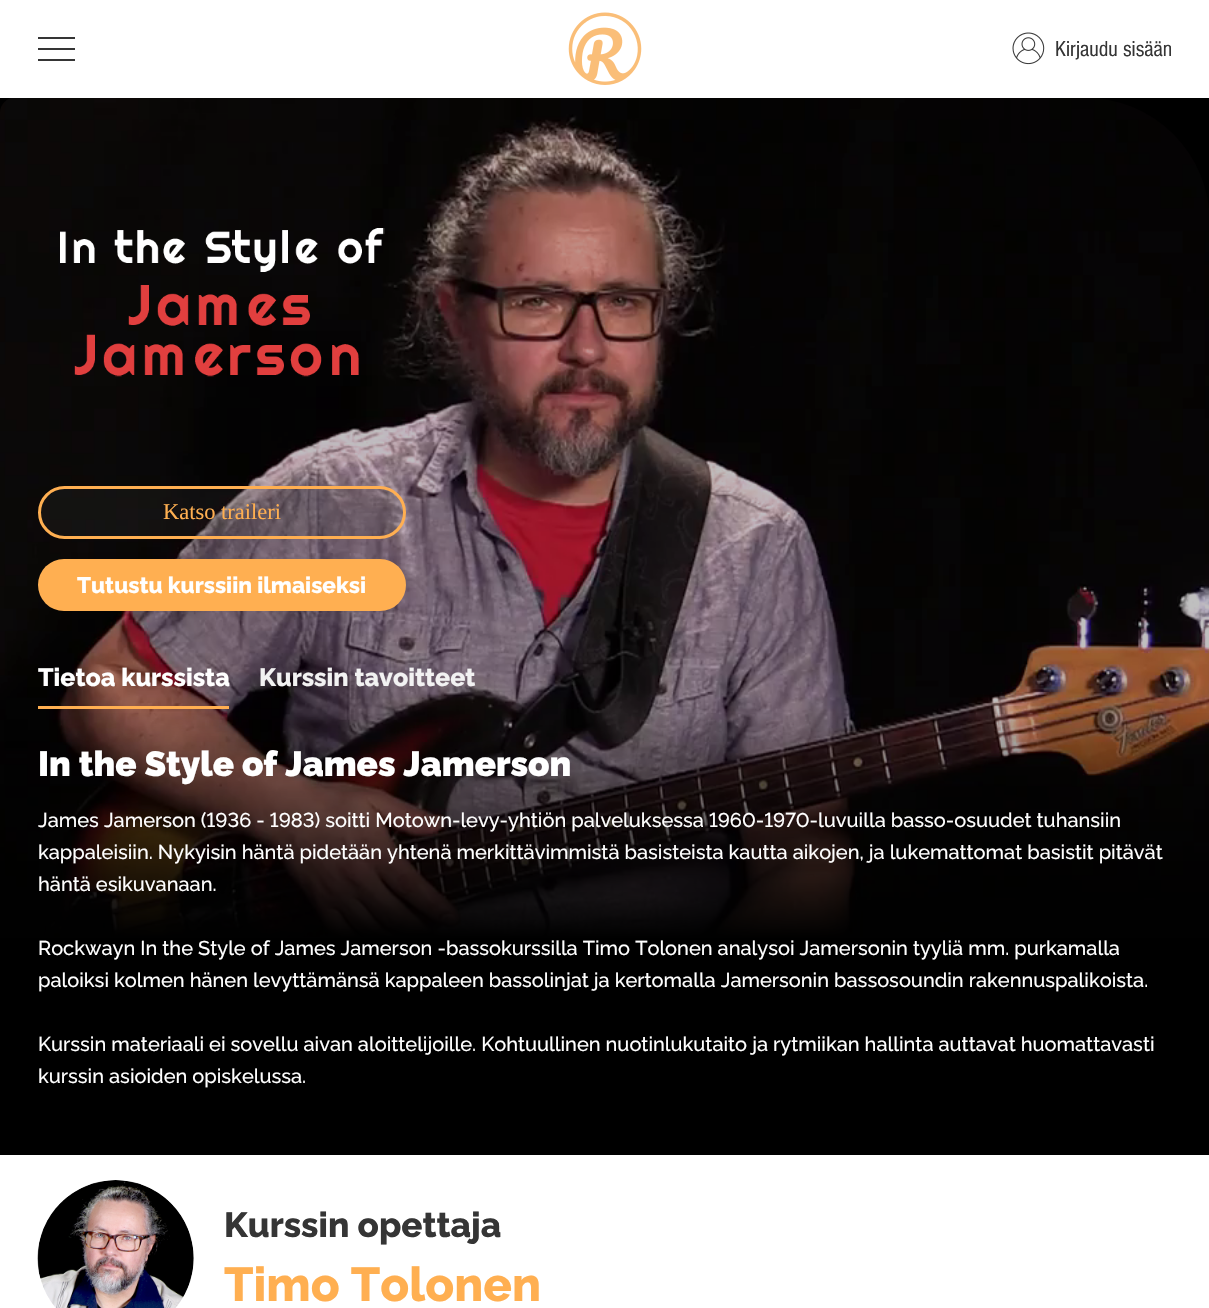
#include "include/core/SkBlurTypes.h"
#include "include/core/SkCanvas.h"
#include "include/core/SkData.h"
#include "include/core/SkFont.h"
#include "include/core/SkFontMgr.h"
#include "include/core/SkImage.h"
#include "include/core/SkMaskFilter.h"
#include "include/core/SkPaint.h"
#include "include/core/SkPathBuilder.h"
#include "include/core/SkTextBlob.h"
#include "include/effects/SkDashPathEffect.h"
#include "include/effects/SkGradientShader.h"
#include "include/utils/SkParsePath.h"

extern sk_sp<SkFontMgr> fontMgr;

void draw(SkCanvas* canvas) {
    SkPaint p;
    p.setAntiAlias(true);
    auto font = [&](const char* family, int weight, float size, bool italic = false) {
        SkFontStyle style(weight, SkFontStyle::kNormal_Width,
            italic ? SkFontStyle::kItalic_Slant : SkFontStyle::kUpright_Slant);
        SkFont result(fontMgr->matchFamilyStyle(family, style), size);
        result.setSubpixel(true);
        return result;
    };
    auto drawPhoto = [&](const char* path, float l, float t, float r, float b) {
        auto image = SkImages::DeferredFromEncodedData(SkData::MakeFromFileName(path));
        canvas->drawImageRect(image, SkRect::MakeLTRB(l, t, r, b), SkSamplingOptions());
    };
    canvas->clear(0xFFFFFFFF);
    {
        const struct { float l, t, r, b; SkColor color; } items[] = {
            {38, 37, 75, 39, 0xFF353535},
            {38, 48, 75, 50, 0xFF353535},
            {38, 59, 75, 61, 0xFF353535},
        };
        for (auto [l, t, r, b, color] : items) {
            p.setColor(color);
            canvas->drawRect(SkRect::MakeLTRB(l, t, r, b), p);
        }
    }
    drawPhoto("media/1.png", 568, 12, 642, 85);
    drawPhoto("media/2.png", 1012, 32, 1045, 65);
    auto font1 = font("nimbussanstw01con", 400, 22.5f);
    canvas->drawString("Kirjaudu sisään", 1055, 56, font1, p);
    p.setColor(0xFF000000);
    canvas->drawRect(SkRect::MakeLTRB(0, 98, 1209, 937), p);
    drawPhoto("media/3.png", 0, 98, 1209, 937);
    drawPhoto("media/4.png", 60, 228, 385, 377);
    p.setColor(0x33353535);
    canvas->drawRoundRect(SkRect::MakeLTRB(39.5f, 487.5f, 404.5f, 537.5f), 25, 25, p);
    p.setStyle(SkPaint::kStroke_Style);
    p.setStrokeWidth(3);
    p.setColor(0xFFFFAF51);
    canvas->drawRoundRect(SkRect::MakeLTRB(39.5f, 487.5f, 404.5f, 537.5f), 25, 25, p);
    auto font2 = font("Liberation Serif", 400, 22.5f);
    p.setStyle(SkPaint::kFill_Style);
    canvas->drawString("Katso traileri", 163, 519, font2, p);
    canvas->drawRoundRect(SkRect::MakeLTRB(38, 559, 406, 611), 26, 26, p);
    auto font3 = font("Raleway", 800, 22.5f);
    p.setColor(0xFFFFFFFF);
    canvas->drawString("Tutustu kurssiin ilmaiseksi", 77, 593, font3, p);
    auto font4 = font("Raleway", 800, 25);
    canvas->drawString("Tietoa kurssista", 38, 686, font4, p);
    p.setColor(0xFFFFAF51);
    canvas->drawRect(SkRect::MakeLTRB(38, 706, 229, 709), p);
    p.setColor(0xFFF2F2F2);
    canvas->drawString("Kurssin tavoitteet", 259, 686, font4, p);
    {
        const SkColor colors[] = {0x00000000, 0xFF000000};
        const float stops[] = {0, 1};
        const SkPoint ends[] = {{605, 708}, {605, 938}};
        p.setShader(SkGradientShader::MakeLinear(ends, colors, stops, 2, SkTileMode::kClamp));
        p.setAlpha(255);
    }
    canvas->drawRect(SkRect::MakeLTRB(0, 713, 1209, 1155), p);
    auto font5 = font("Raleway", 900, 35);
    p.setShader(nullptr);
    p.setColor(0xFFFFFFFF);
    canvas->drawString("In the Style of James Jamerson", 38, 776, font5, p);
    auto font6 = font("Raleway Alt", 500, 20);
    canvas->drawString("James Jamerson (1936 - 1983) soitti Motown-levy-yhtiön palveluksessa 1960-1970-luvuilla basso-osuudet tuhansiin", 38, 827, font6, p);
    auto font7 = font("Raleway", 500, 20);
    {
        const struct { const char* s; float x, y; } items[] = {
            {"kappaleisiin. Nykyisin häntä pidetään yhtenä merkittävimmistä basisteista kautta aikojen, ja lukemattomat basistit pitävät", 38, 859},
            {"häntä esikuvanaan.", 38, 891},
            {"Rockwayn In the Style of James Jamerson -bassokurssilla Timo Tolonen analysoi Jamersonin tyyliä mm. purkamalla", 38, 955},
            {"paloiksi kolmen hänen levyttämänsä kappaleen bassolinjat ja kertomalla Jamersonin bassosoundin rakennuspalikoista.", 38, 987},
            {"Kurssin materiaali ei sovellu aivan aloittelijoille. Kohtuullinen nuotinlukutaito ja rytmiikan hallinta auttavat huomattavasti", 38, 1051},
            {"kurssin asioiden opiskelussa.", 38, 1083},
        };
        for (auto [s, x, y] : items) {
            canvas->drawString(s, x, y, font7, p);
        }
    }
    drawPhoto("media/5.png", 37, 1180, 194, 1308);
    auto font8 = font("Raleway", 800, 35);
    p.setColor(0xFF353535);
    canvas->drawString("Kurssin opettaja", 224, 1237, font8, p);
    auto font9 = font("Raleway", 800, 47.5f);
    p.setColor(0xFFFFAF51);
    canvas->drawString("Timo Tolonen", 224, 1301, font9, p);
}
